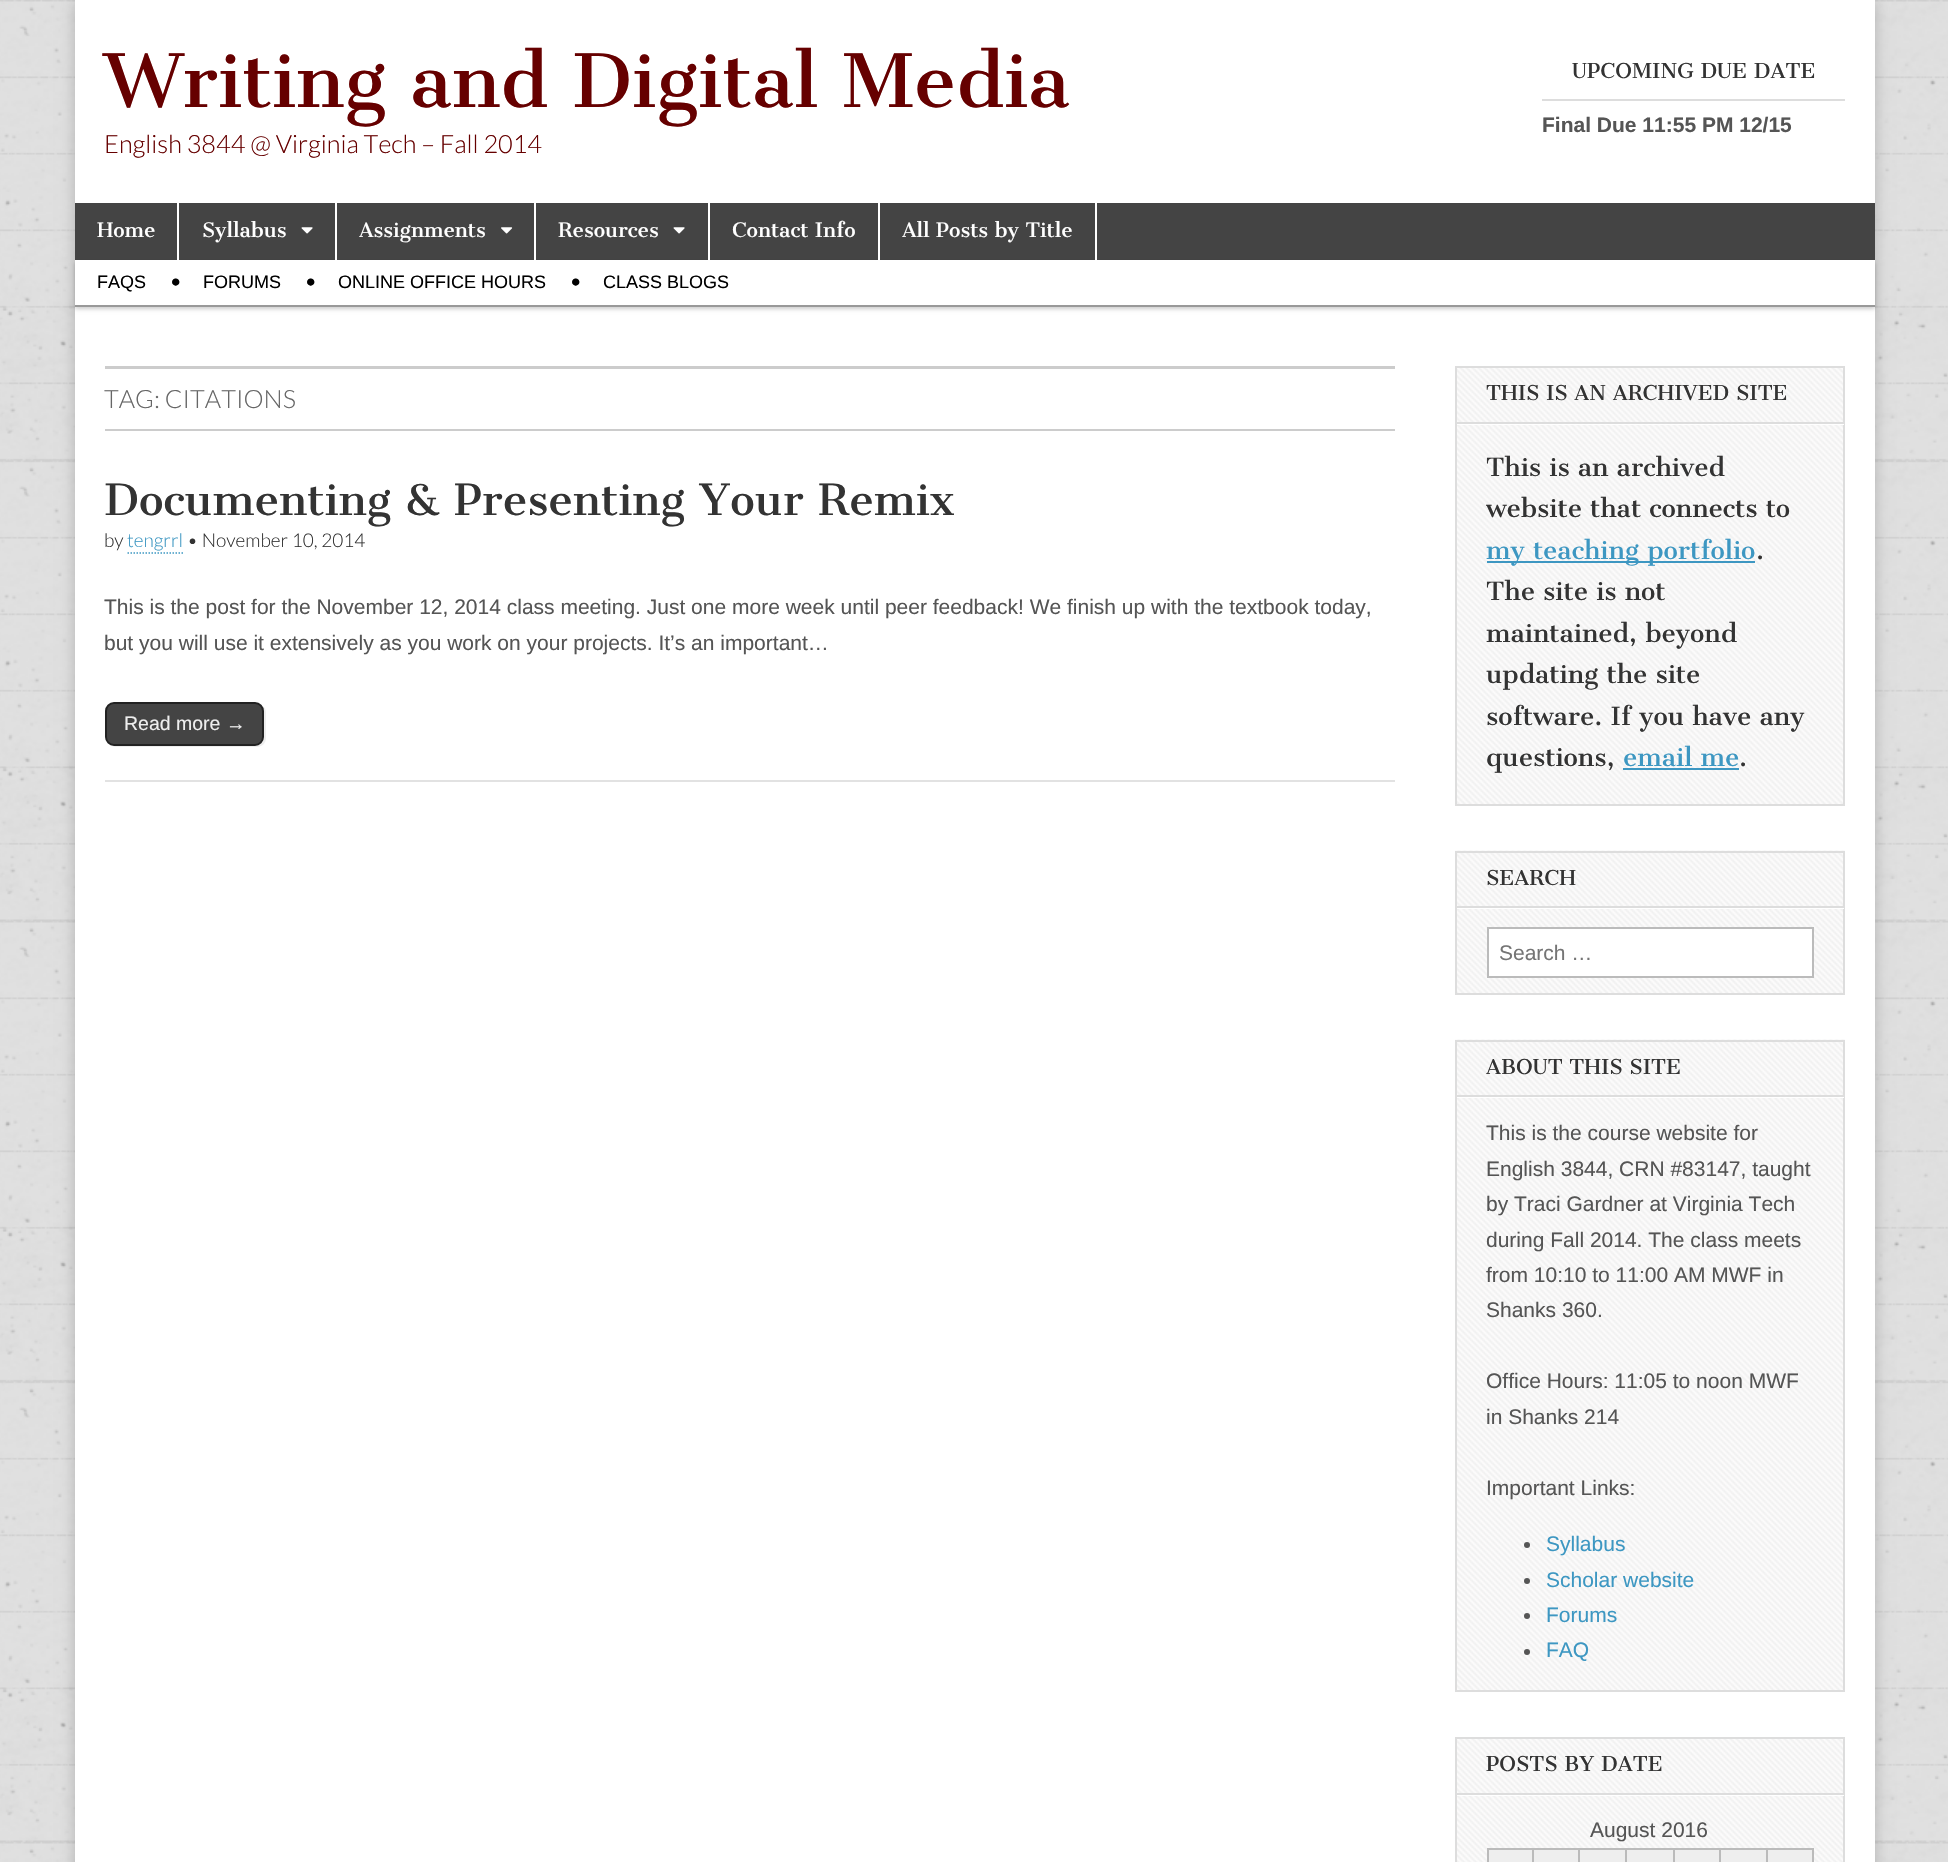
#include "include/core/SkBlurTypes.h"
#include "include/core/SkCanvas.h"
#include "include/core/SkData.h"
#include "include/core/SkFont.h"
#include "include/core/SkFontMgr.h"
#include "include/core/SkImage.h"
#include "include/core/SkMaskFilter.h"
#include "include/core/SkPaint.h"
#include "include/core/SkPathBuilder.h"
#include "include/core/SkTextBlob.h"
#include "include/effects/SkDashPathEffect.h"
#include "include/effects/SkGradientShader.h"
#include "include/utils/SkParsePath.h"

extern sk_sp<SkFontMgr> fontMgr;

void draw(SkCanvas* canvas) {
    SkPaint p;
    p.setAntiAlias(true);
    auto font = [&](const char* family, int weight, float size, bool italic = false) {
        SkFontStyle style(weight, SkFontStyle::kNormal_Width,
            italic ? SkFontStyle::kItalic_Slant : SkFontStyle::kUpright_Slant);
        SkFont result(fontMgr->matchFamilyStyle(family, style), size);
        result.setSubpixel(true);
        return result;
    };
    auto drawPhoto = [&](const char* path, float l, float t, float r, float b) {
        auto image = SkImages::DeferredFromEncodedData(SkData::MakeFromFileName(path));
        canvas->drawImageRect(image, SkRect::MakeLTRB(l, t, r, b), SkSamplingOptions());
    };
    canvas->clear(0xFFFFFFFF);
    drawPhoto("media/1.png", 0, 0, 1948, 1862);
    p.setColor(0x33000000);
    p.setMaskFilter(SkMaskFilter::MakeBlur(kNormal_SkBlurStyle, 7.5f));
    canvas->drawRect(SkRect::MakeLTRB(75, 0, 1875, 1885), p);
    p.setMaskFilter(nullptr);
    p.setColor(0xFFFFFFFF);
    canvas->drawRect(SkRect::MakeLTRB(75, 0, 1875, 1862), p);
    auto font1 = font("Cantata One", 400, 72);
    p.setColor(0xFF660000);
    canvas->drawString("Writing and Digital Media", 104, 107, font1, p);
    auto font2 = font("Lato", 300, 25.25f);
    canvas->drawString("English 3844 @ Virginia Tech – Fall 2014", 104, 153, font2, p);
    p.setColor(0xFFDDDDDD);
    canvas->drawRect(SkRect::MakeLTRB(1542, 99, 1845, 101), p);
    auto font3 = font("Cantata One", 400, 20);
    p.setColor(0xFF333333);
    canvas->drawString("UPCOMING DUE DATE", 1572, 78, font3, p);
    auto font4 = font("Liberation Sans", 700, 21);
    p.setColor(0xFF555555);
    canvas->drawString("Final Due 11:55 PM 12/15", 1542, 132, font4, p);
    p.setColor(0xFF444444);
    canvas->drawRect(SkRect::MakeLTRB(75, 203, 1875, 260), p);
    canvas->save();
    canvas->clipPath(SkPathBuilder(SkPathFillType::kEvenOdd).moveTo(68, 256).lineTo(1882, 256).lineTo(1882, 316).lineTo(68, 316).close().moveTo(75, 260).lineTo(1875, 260).lineTo(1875, 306).lineTo(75, 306).close().detach(), true);
    p.setColor(0x33000000);
    p.setMaskFilter(SkMaskFilter::MakeBlur(kNormal_SkBlurStyle, 2));
    canvas->drawRect(SkRect::MakeLTRB(75, 263, 1875, 309), p);
    p.setMaskFilter(nullptr);
    canvas->restore();
    p.setColor(0xFFFFFFFF);
    canvas->drawRect(SkRect::MakeLTRB(177, 203, 179, 260), p);
    auto font5 = font("Cantata One", 400, 19.5f);
    canvas->drawString("Home", 97, 237, font5, p);
    canvas->drawRect(SkRect::MakeLTRB(335, 203, 337, 260), p);
    canvas->drawString("Syllabus", 202, 237, font5, p);
    drawPhoto("media/2.png", 301, 227, 313, 234);
    canvas->drawRect(SkRect::MakeLTRB(534, 203, 536, 260), p);
    canvas->drawString("Assignments", 359, 237, font5, p);
    drawPhoto("media/3.png", 501, 227, 513, 234);
    canvas->drawRect(SkRect::MakeLTRB(708, 203, 710, 260), p);
    canvas->drawString("Resources", 558, 237, font5, p);
    drawPhoto("media/2.png", 673, 227, 685, 234);
    canvas->drawRect(SkRect::MakeLTRB(878, 203, 880, 260), p);
    canvas->drawString("Contact Info", 732, 237, font5, p);
    canvas->drawRect(SkRect::MakeLTRB(1095, 203, 1097, 260), p);
    canvas->drawString("All Posts by Title", 902, 237, font5, p);
    p.setColor(0xFF999999);
    canvas->drawRect(SkRect::MakeLTRB(75, 305, 1875, 307), p);
    auto font6 = font("Liberation Sans", 400, 18);
    p.setColor(0xFF000000);
    canvas->drawString("FAQS", 97, 288, font6, p);
    auto font7 = font("Liberation Sans", 400, 27);
    canvas->drawString("•", 171, 291, font7, p);
    canvas->drawString("FORUMS", 203, 288, font6, p);
    canvas->drawString("•", 306, 291, font7, p);
    canvas->drawString("ONLINE OFFICE HOURS", 338, 288, font6, p);
    canvas->drawString("•", 571, 291, font7, p);
    canvas->drawString("CLASS BLOGS", 603, 288, font6, p);
    p.setColor(0xFFCCCCCC);
    canvas->drawRect(SkRect::MakeLTRB(105, 366, 1395, 369), p);
    canvas->drawRect(SkRect::MakeLTRB(105, 429, 1395, 431), p);
    p.setColor(0xFF666666);
    canvas->drawString("TAG: CITATIONS", 104, 408, font2, p);
    auto font8 = font("Cantata One", 400, 42);
    p.setColor(0xFF333333);
    canvas->drawString("Documenting & Presenting Your Remix", 104, 515, font8, p);
    auto font9 = font("Lato", 300, 19);
    canvas->drawString("by", 104, 547, font9, p);
    p.setColor(0xFF3D97C2);
    canvas->drawString("tengrrl", 127, 547, font9, p);
    p.setStyle(SkPaint::kStroke_Style);
    p.setStrokeWidth(1.5f);
    p.setPathEffect(SkDashPathEffect::Make({{1.5f, 1.5f}}, 0));
    canvas->drawPath(SkPathBuilder().moveTo(127.5f, 553).lineTo(183, 553).detach(), p);
    p.setPathEffect(nullptr);
    p.setStyle(SkPaint::kFill_Style);
    p.setColor(0xFF333333);
    canvas->drawString("• November 10, 2014", 187, 547, font9, p);
    p.setColor(0xFFE2E2E2);
    canvas->drawRect(SkRect::MakeLTRB(105, 780, 1395, 782), p);
    auto font10 = font("Liberation Sans", 400, 21);
    p.setColor(0xFF555555);
    canvas->drawString("This is the post for the November 12, 2014 class meeting. Just one more week until peer feedback! We finish up with the textbook today,", 104, 614, font10, p);
    canvas->drawString("but you will use it extensively as you work on your projects. It’s an important…", 104, 650, font10, p);
    p.setColor(0xFFEEEEEE);
    canvas->drawPath(SkPathBuilder().moveTo(110, 744).cubicTo(111, 746, 114, 747, 116, 747).lineTo(257, 747).cubicTo(262, 747, 266, 743, 266, 738).lineTo(266, 713).cubicTo(266, 710, 265, 707, 262, 706).cubicTo(263, 707, 264, 709, 264, 711).lineTo(264, 736).cubicTo(264, 741, 260, 746, 255, 746).lineTo(114, 746).cubicTo(112, 746, 111, 745, 110, 744).close().detach(), p);
    p.setColor(0xFF444444);
    canvas->drawRoundRect(SkRect::MakeLTRB(106, 703, 263, 745), 8, 8, p);
    p.setStyle(SkPaint::kStroke_Style);
    p.setStrokeWidth(2);
    p.setColor(0xFF222222);
    canvas->drawRoundRect(SkRect::MakeLTRB(106, 703, 263, 745), 8, 8, p);
    auto font11 = font("Liberation Sans", 400, 19.5f);
    p.setStyle(SkPaint::kFill_Style);
    p.setColor(0xFFEEEEEE);
    canvas->drawString("Read more →", 124, 730, font11, p);
    drawPhoto("media/4.png", 1457, 368, 1843, 804);
    p.setStyle(SkPaint::kStroke_Style);
    p.setColor(0xFFDDDDDD);
    canvas->drawRect(SkRect::MakeLTRB(1456, 367, 1844, 805), p);
    p.setStyle(SkPaint::kFill_Style);
    p.setColor(0xFFFFFFFF);
    canvas->drawPath(SkPathBuilder().moveTo(1457, 423).lineTo(1457, 425).lineTo(1844, 425).lineTo(1844, 369).lineTo(1844, 423).close().detach(), p);
    p.setColor(0xFFDDDDDD);
    canvas->drawRect(SkRect::MakeLTRB(1457, 422, 1844, 424), p);
    p.setColor(0xFF333333);
    canvas->drawString("THIS IS AN ARCHIVED SITE", 1486, 400, font3, p);
    auto font12 = font("Cantata One", 400, 24.5f);
    canvas->drawString("This is an archived", 1486, 476, font12, p);
    canvas->drawString("website that connects to", 1486, 517, font12, p);
    p.setColor(0xFF3D97C2);
    canvas->drawRect(SkRect::MakeLTRB(1487, 561, 1755, 563), p);
    canvas->drawString("my teaching portfolio", 1486, 559, font12, p);
    p.setColor(0xFF333333);
    {
        const struct { const char* s; float x, y; } items[] = {
            {".", 1756, 559},
            {"The site is not", 1486, 600},
            {"maintained, beyond", 1486, 642},
            {"updating the site", 1486, 683},
            {"software. If you have any", 1486, 725},
            {"questions,", 1486, 766},
        };
        for (auto [s, x, y] : items) {
            canvas->drawString(s, x, y, font12, p);
        }
    }
    p.setColor(0xFF3D97C2);
    canvas->drawString("email me", 1623, 766, font12, p);
    canvas->drawRect(SkRect::MakeLTRB(1623, 768, 1739, 770), p);
    p.setColor(0xFF333333);
    canvas->drawString(".", 1739, 766, font12, p);
    drawPhoto("media/5.png", 1455, 850, 1845, 993);
    p.setStyle(SkPaint::kStroke_Style);
    p.setColor(0xFFDDDDDD);
    canvas->drawRect(SkRect::MakeLTRB(1456, 852, 1844, 994), p);
    p.setStyle(SkPaint::kFill_Style);
    p.setColor(0xFFFFFFFF);
    canvas->drawPath(SkPathBuilder().moveTo(1457, 908).lineTo(1457, 909).lineTo(1844, 909).lineTo(1844, 869).lineTo(1844, 908).close().detach(), p);
    p.setColor(0xFFDDDDDD);
    canvas->drawRect(SkRect::MakeLTRB(1457, 906, 1844, 908), p);
    p.setColor(0xFF333333);
    canvas->drawString("SEARCH", 1486, 885, font3, p);
    p.setColor(0xFFFFFFFF);
    canvas->drawRect(SkRect::MakeLTRB(1488, 928, 1813, 977), p);
    p.setStyle(SkPaint::kStroke_Style);
    p.setColor(0xFFBBBBBB);
    canvas->drawRect(SkRect::MakeLTRB(1488, 928, 1813, 977), p);
    p.setStyle(SkPaint::kFill_Style);
    p.setColor(0xFF757575);
    canvas->drawString("Search …", 1499, 960, font10, p);
    drawPhoto("media/6.png", 1455, 1039, 1845, 1690);
    p.setStyle(SkPaint::kStroke_Style);
    p.setColor(0xFFDDDDDD);
    canvas->drawRect(SkRect::MakeLTRB(1456, 1041, 1844, 1691), p);
    p.setStyle(SkPaint::kFill_Style);
    p.setColor(0xFFFFFFFF);
    canvas->drawPath(SkPathBuilder().moveTo(1457, 1096).lineTo(1457, 1098).lineTo(1844, 1098).lineTo(1844, 1043).lineTo(1844, 1096).close().detach(), p);
    p.setColor(0xFFDDDDDD);
    canvas->drawRect(SkRect::MakeLTRB(1457, 1095, 1844, 1097), p);
    p.setColor(0xFF333333);
    canvas->drawString("ABOUT THIS SITE", 1486, 1074, font3, p);
    p.setColor(0xFF555555);
    {
        const struct { const char* s; float x, y; } items[] = {
            {"This is the course website for", 1486, 1140},
            {"English 3844, CRN #83147, taught", 1486, 1176},
            {"by Traci Gardner at Virginia Tech", 1486, 1211},
            {"during Fall 2014. The class meets", 1486, 1247},
            {"from 10:10 to 11:00 AM MWF in", 1486, 1282},
            {"Shanks 360.", 1486, 1317},
            {"Office Hours: 11:05 to noon MWF", 1486, 1388},
            {"in Shanks 214", 1486, 1424},
            {"Important Links:", 1486, 1495},
        };
        for (auto [s, x, y] : items) {
            canvas->drawString(s, x, y, font10, p);
        }
    }
    canvas->drawCircle(1527, 1545, 3, p);
    p.setColor(0xFF3D97C2);
    canvas->drawString("Syllabus", 1546, 1551, font10, p);
    p.setColor(0xFF555555);
    canvas->drawCircle(1527, 1581, 3, p);
    p.setColor(0xFF3D97C2);
    canvas->drawString("Scholar website", 1546, 1587, font10, p);
    p.setColor(0xFF555555);
    canvas->drawCircle(1527, 1616, 3, p);
    p.setColor(0xFF3D97C2);
    canvas->drawString("Forums", 1546, 1622, font10, p);
    p.setColor(0xFF555555);
    canvas->drawCircle(1527, 1652, 3, p);
    p.setColor(0xFF3D97C2);
    canvas->drawString("FAQ", 1546, 1657, font10, p);
    drawPhoto("media/7.png", 1457, 1739, 1843, 1862);
    p.setStyle(SkPaint::kStroke_Style);
    p.setColor(0xFFDDDDDD);
    canvas->drawRect(SkRect::MakeLTRB(1456, 1738, 1844, 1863), p);
    p.setStyle(SkPaint::kFill_Style);
    p.setColor(0xFFFFFFFF);
    canvas->drawPath(SkPathBuilder().moveTo(1457, 1794).lineTo(1457, 1796).lineTo(1844, 1796).lineTo(1844, 1740).lineTo(1844, 1794).close().detach(), p);
    p.setColor(0xFFDDDDDD);
    canvas->drawRect(SkRect::MakeLTRB(1457, 1793, 1844, 1795), p);
    p.setColor(0xFF333333);
    canvas->drawString("POSTS BY DATE", 1486, 1771, font3, p);
    p.setColor(0xFF555555);
    canvas->drawString("August 2016", 1590, 1837, font10, p);
    {
        const struct { float l, t, r, b; SkColor color; } items[] = {
            {1489, 1850, 1532, 1862, 0xFFEEEEEE},
            {1766, 1848, 1814, 1850, 0xFFBBBBBB},
            {1766, 1848, 1768, 1862, 0xFFBBBBBB},
            {1719, 1848, 1767, 1850, 0xFFBBBBBB},
            {1719, 1848, 1721, 1862, 0xFFBBBBBB},
            {1673, 1848, 1721, 1850, 0xFFBBBBBB},
            {1673, 1848, 1675, 1862, 0xFFBBBBBB},
            {1625, 1848, 1674, 1850, 0xFFBBBBBB},
            {1625, 1848, 1627, 1862, 0xFFBBBBBB},
            {1578, 1848, 1626, 1850, 0xFFBBBBBB},
            {1578, 1848, 1580, 1862, 0xFFBBBBBB},
            {1532, 1848, 1580, 1850, 0xFFBBBBBB},
            {1532, 1848, 1534, 1862, 0xFFBBBBBB},
            {1487, 1848, 1533, 1850, 0xFFBBBBBB},
            {1487, 1848, 1489, 1862, 0xFFBBBBBB},
            {1534, 1850, 1578, 1862, 0xFFEEEEEE},
            {1580, 1850, 1625, 1862, 0xFFEEEEEE},
            {1627, 1850, 1673, 1862, 0xFFEEEEEE},
            {1675, 1850, 1719, 1862, 0xFFEEEEEE},
            {1721, 1850, 1766, 1862, 0xFFEEEEEE},
            {1768, 1850, 1812, 1862, 0xFFEEEEEE},
            {1812, 1848, 1814, 1862, 0xFFBBBBBB},
        };
        for (auto [l, t, r, b, color] : items) {
            p.setColor(color);
            canvas->drawRect(SkRect::MakeLTRB(l, t, r, b), p);
        }
    }
}
